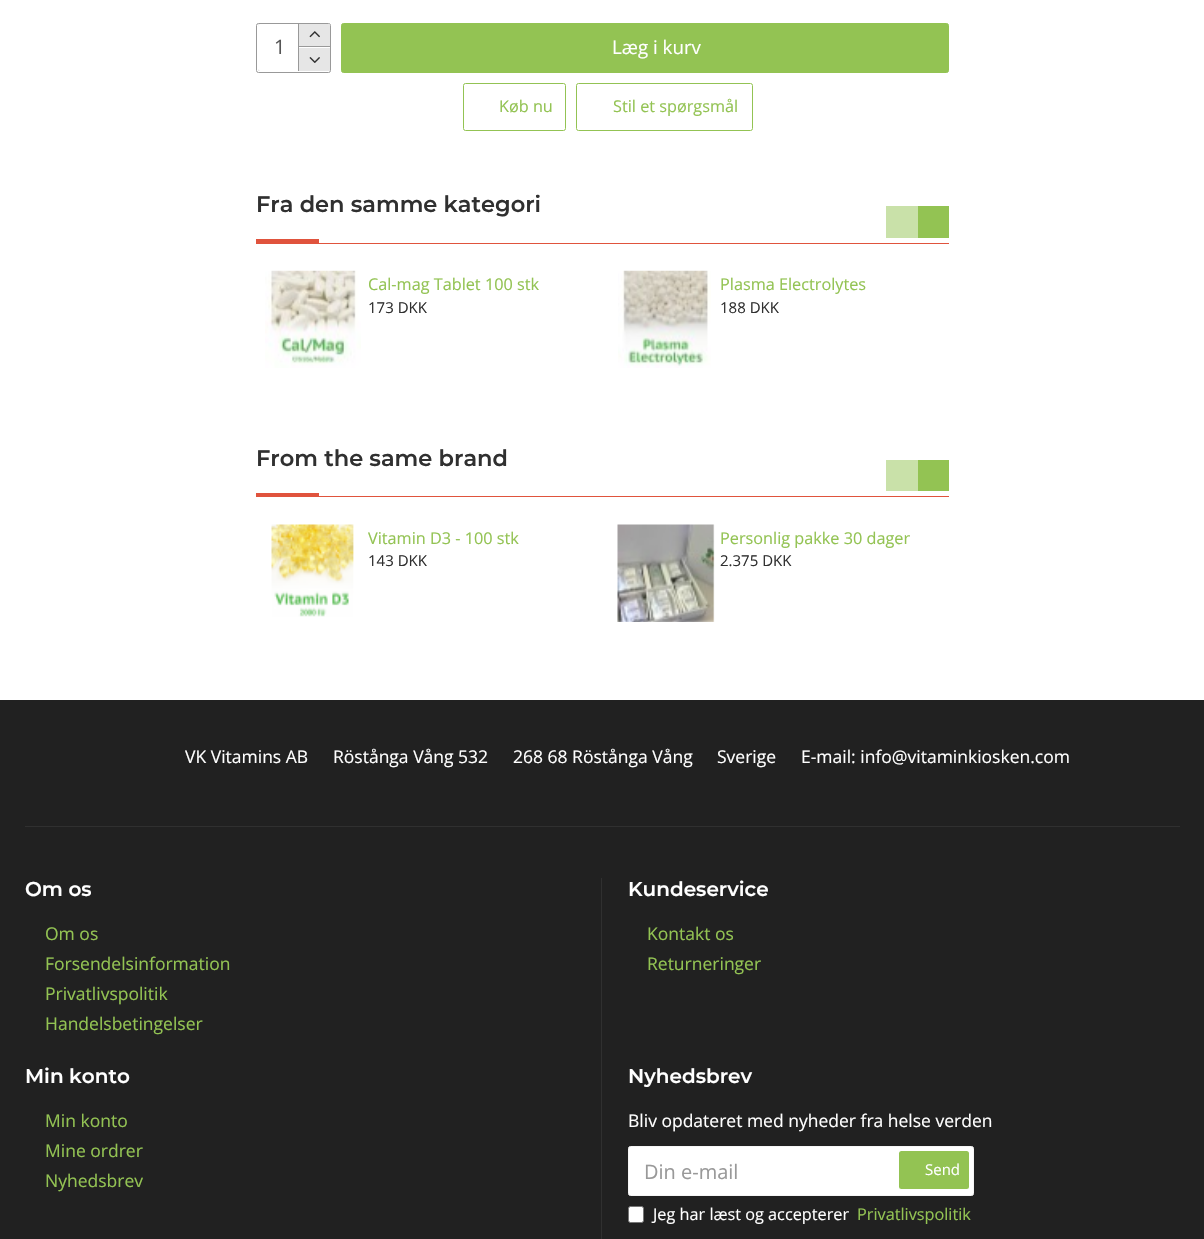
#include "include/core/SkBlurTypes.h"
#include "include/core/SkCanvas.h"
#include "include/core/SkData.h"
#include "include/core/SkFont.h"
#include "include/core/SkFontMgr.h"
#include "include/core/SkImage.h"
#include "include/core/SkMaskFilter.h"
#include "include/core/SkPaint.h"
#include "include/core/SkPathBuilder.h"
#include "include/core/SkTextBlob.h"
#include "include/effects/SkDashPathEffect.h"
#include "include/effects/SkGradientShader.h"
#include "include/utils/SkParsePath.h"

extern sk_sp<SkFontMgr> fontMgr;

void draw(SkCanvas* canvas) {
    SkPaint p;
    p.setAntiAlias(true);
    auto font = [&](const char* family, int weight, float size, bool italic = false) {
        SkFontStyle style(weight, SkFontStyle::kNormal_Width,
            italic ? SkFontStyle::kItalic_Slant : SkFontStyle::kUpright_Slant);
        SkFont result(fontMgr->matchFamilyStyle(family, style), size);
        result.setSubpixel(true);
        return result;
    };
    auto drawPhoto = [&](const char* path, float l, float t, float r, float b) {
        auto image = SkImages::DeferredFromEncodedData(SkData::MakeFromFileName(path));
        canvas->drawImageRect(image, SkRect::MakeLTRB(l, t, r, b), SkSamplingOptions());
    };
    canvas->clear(0xFFFFFFFF);
    p.setStyle(SkPaint::kStroke_Style);
    p.setStrokeWidth(1);
    p.setColor(0xFF999999);
    canvas->drawRoundRect(SkRect::MakeLTRB(256.5f, 23.5f, 330.5f, 72.5f), 2, 2, p);
    canvas->save();
    canvas->clipPath(SkPathBuilder().moveTo(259, 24).lineTo(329, 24).cubicTo(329.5f, 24, 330, 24.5f, 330, 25).lineTo(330, 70).cubicTo(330, 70.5f, 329.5f, 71, 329, 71).lineTo(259, 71).cubicTo(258.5f, 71, 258, 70.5f, 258, 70).lineTo(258, 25).cubicTo(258, 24.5f, 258.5f, 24, 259, 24).close().detach(), true);
    p.setStyle(SkPaint::kFill_Style);
    p.setColor(0xFF555555);
    p.setMaskFilter(SkMaskFilter::MakeBlur(kNormal_SkBlurStyle, 9.5f));
    canvas->drawRect(SkRect::MakeLTRB(260, 29, 328, 71), p);
    p.setMaskFilter(nullptr);
    canvas->restore();
    p.setColor(0xFFFFFFFF);
    canvas->drawRoundRect(SkRect::MakeLTRB(258, 24, 330, 71), 2.5f, 2.5f, p);
    auto font1 = font("Open Sans", 400, 20);
    p.setColor(0xFF555555);
    canvas->drawString("1", 274, 54, font1, p);
    p.setColor(0xFF999999);
    canvas->drawRect(SkRect::MakeLTRB(298, 24, 299, 71), p);
    p.setColor(0xFFE6E6E6);
    canvas->drawPath(SkPathBuilder().moveTo(299, 24).lineTo(329, 24).cubicTo(329.5f, 24, 330, 24.5f, 330, 25).lineTo(330, 46).lineTo(299, 46).close().detach(), p);
    p.setColor(0xFF999999);
    canvas->drawRect(SkRect::MakeLTRB(299, 46, 330, 47), p);
    drawPhoto("media/1.png", 309, 31, 320, 38);
    p.setColor(0xFFE6E6E6);
    canvas->drawPath(SkPathBuilder().moveTo(299, 48).lineTo(330, 48).lineTo(330, 70).cubicTo(330, 70.5f, 329.5f, 71, 329, 71).lineTo(299, 71).close().detach(), p);
    drawPhoto("media/2.png", 309, 57, 320, 63);
    p.setColor(0xFF93C353);
    canvas->drawRoundRect(SkRect::MakeLTRB(341.5f, 23.5f, 948.5f, 72.5f), 2, 2, p);
    p.setStyle(SkPaint::kStroke_Style);
    canvas->drawRoundRect(SkRect::MakeLTRB(341.5f, 23.5f, 948.5f, 72.5f), 2, 2, p);
    auto font2 = font("Open Sans", 400, 18.75f);
    p.setStyle(SkPaint::kFill_Style);
    p.setColor(0xFFFFFFFF);
    canvas->drawString("Læg i kurv", 612, 54, font2, p);
    p.setStyle(SkPaint::kStroke_Style);
    p.setColor(0xFF93C353);
    canvas->drawRoundRect(SkRect::MakeLTRB(463.5f, 83.5f, 565.5f, 130.5f), 2, 2, p);
    auto font3 = font("Open Sans", 400, 16.25f);
    p.setStyle(SkPaint::kFill_Style);
    canvas->drawString("Køb nu", 499, 112, font3, p);
    p.setStyle(SkPaint::kStroke_Style);
    canvas->drawRoundRect(SkRect::MakeLTRB(576.5f, 83.5f, 752.5f, 130.5f), 2, 2, p);
    p.setStyle(SkPaint::kFill_Style);
    canvas->drawString("Stil et spørgsmål", 613, 112, font3, p);
    p.setColor(0xFFE0533D);
    canvas->drawRect(SkRect::MakeLTRB(256, 243, 949, 244), p);
    auto font4 = font("Montserrat", 600, 22.5f);
    p.setColor(0xFF303030);
    canvas->drawString("Fra den samme kategori", 256, 212, font4, p);
    {
        const struct { float l, t, r, b; SkColor color; } items[] = {
            {256, 239, 319, 243, 0xFFE0533D},
            {886, 206, 918, 238, 0xFFC9E1A9},
            {918, 206, 949, 238, 0xFF93C353},
        };
        for (auto [l, t, r, b, color] : items) {
            p.setColor(color);
            canvas->drawRect(SkRect::MakeLTRB(l, t, r, b), p);
        }
    }
    drawPhoto("media/3.png", 265, 270, 361, 368);
    canvas->drawString("Cal-mag Tablet 100 stk", 368, 290, font3, p);
    auto font5 = font("Open Sans", 400, 15);
    p.setColor(0xFF303030);
    canvas->drawString("173 DKK", 368, 313, font5, p);
    drawPhoto("media/4.png", 618, 270, 711, 368);
    p.setColor(0xFF93C353);
    canvas->drawString("Plasma Electrolytes", 720, 290, font3, p);
    p.setColor(0xFF303030);
    canvas->drawString("188 DKK", 720, 313, font5, p);
    p.setColor(0xFFE0533D);
    canvas->drawRect(SkRect::MakeLTRB(319, 496, 949, 497), p);
    p.setColor(0xFF303030);
    canvas->drawString("From the same brand", 256, 466, font4, p);
    {
        const struct { float l, t, r, b; SkColor color; } items[] = {
            {256, 493, 319, 497, 0xFFE0533D},
            {886, 460, 918, 491, 0xFFC9E1A9},
            {918, 460, 949, 491, 0xFF93C353},
        };
        for (auto [l, t, r, b, color] : items) {
            p.setColor(color);
            canvas->drawRect(SkRect::MakeLTRB(l, t, r, b), p);
        }
    }
    drawPhoto("media/5.png", 271, 524, 354, 617);
    canvas->drawString("Vitamin D3 - 100 stk", 368, 544, font3, p);
    p.setColor(0xFF303030);
    canvas->drawString("143 DKK", 368, 566, font5, p);
    drawPhoto("media/6.png", 617, 524, 715, 622);
    p.setColor(0xFF93C353);
    canvas->drawString("Personlig pakke 30 dager", 720, 544, font3, p);
    p.setColor(0xFF303030);
    canvas->drawString("2.375 DKK", 720, 566, font5, p);
    p.setColor(0xFF212121);
    canvas->drawRect(SkRect::MakeLTRB(0, 700, 1204, 1239), p);
    p.setColor(0xFF303030);
    canvas->drawRect(SkRect::MakeLTRB(25, 826, 1180, 827), p);
    auto font6 = font("Open Sans", 400, 17.5f);
    p.setColor(0xFFFFFFFF);
    {
        const struct { const char* s; float x, y; } items[] = {
            {"VK Vitamins AB", 185, 763},
            {"Röstånga Vång 532", 333, 763},
            {"268 68 Röstånga Vång", 513, 763},
            {"Sverige", 717, 763},
            {"E-mail: info@vitaminkiosken.com", 801, 763},
        };
        for (auto [s, x, y] : items) {
            canvas->drawString(s, x, y, font6, p);
        }
    }
    p.setColor(0xFF303030);
    canvas->drawRect(SkRect::MakeLTRB(601, 878, 602, 1239), p);
    auto font7 = font("Montserrat", 600, 20);
    p.setColor(0xFFFFFFFF);
    canvas->drawString("Om os", 25, 896, font7, p);
    p.setColor(0xFF93C353);
    {
        const struct { const char* s; float x, y; } items[] = {
            {"Om os", 45, 940},
            {"Forsendelsinformation", 45, 970},
            {"Privatlivspolitik", 45, 1000},
            {"Handelsbetingelser", 45, 1030},
        };
        for (auto [s, x, y] : items) {
            canvas->drawString(s, x, y, font6, p);
        }
    }
    p.setColor(0xFFFFFFFF);
    canvas->drawString("Kundeservice", 628, 896, font7, p);
    p.setColor(0xFF93C353);
    canvas->drawString("Kontakt os", 647, 940, font6, p);
    canvas->drawString("Returneringer", 647, 970, font6, p);
    p.setColor(0xFFFFFFFF);
    canvas->drawString("Min konto", 25, 1083, font7, p);
    p.setColor(0xFF93C353);
    {
        const struct { const char* s; float x, y; } items[] = {
            {"Min konto", 45, 1127},
            {"Mine ordrer", 45, 1157},
            {"Nyhedsbrev", 45, 1187},
        };
        for (auto [s, x, y] : items) {
            canvas->drawString(s, x, y, font6, p);
        }
    }
    p.setColor(0xFFFFFFFF);
    canvas->drawString("Nyhedsbrev", 628, 1083, font7, p);
    canvas->drawString("Bliv opdateret med nyheder fra helse verden", 628, 1127, font6, p);
    canvas->drawRoundRect(SkRect::MakeLTRB(628.5f, 1146.5f, 973.5f, 1195.5f), 2, 2, p);
    p.setStyle(SkPaint::kStroke_Style);
    p.setColor(0xFFF5F5F5);
    canvas->drawRoundRect(SkRect::MakeLTRB(628.5f, 1146.5f, 973.5f, 1195.5f), 2, 2, p);
    p.setStyle(SkPaint::kFill_Style);
    p.setColor(0xFF999999);
    canvas->drawString("Din e-mail", 644, 1179, font1, p);
    p.setColor(0xFF93C353);
    canvas->drawRoundRect(SkRect::MakeLTRB(899, 1151, 969, 1189), 2.5f, 2.5f, p);
    p.setColor(0xFFFFFFFF);
    canvas->drawString("Send", 925, 1175, font5, p);
    canvas->drawRoundRect(SkRect::MakeLTRB(628.5f, 1206.5f, 643.5f, 1222.5f), 2, 2, p);
    p.setStyle(SkPaint::kStroke_Style);
    p.setColor(0xFF767676);
    canvas->drawRoundRect(SkRect::MakeLTRB(628.5f, 1206.5f, 643.5f, 1222.5f), 2, 2, p);
    p.setStyle(SkPaint::kFill_Style);
    p.setColor(0xFFFFFFFF);
    canvas->drawString("Jeg har læst og accepterer", 653, 1220, font3, p);
    p.setColor(0xFF93C353);
    canvas->drawString("Privatlivspolitik", 857, 1220, font3, p);
}
